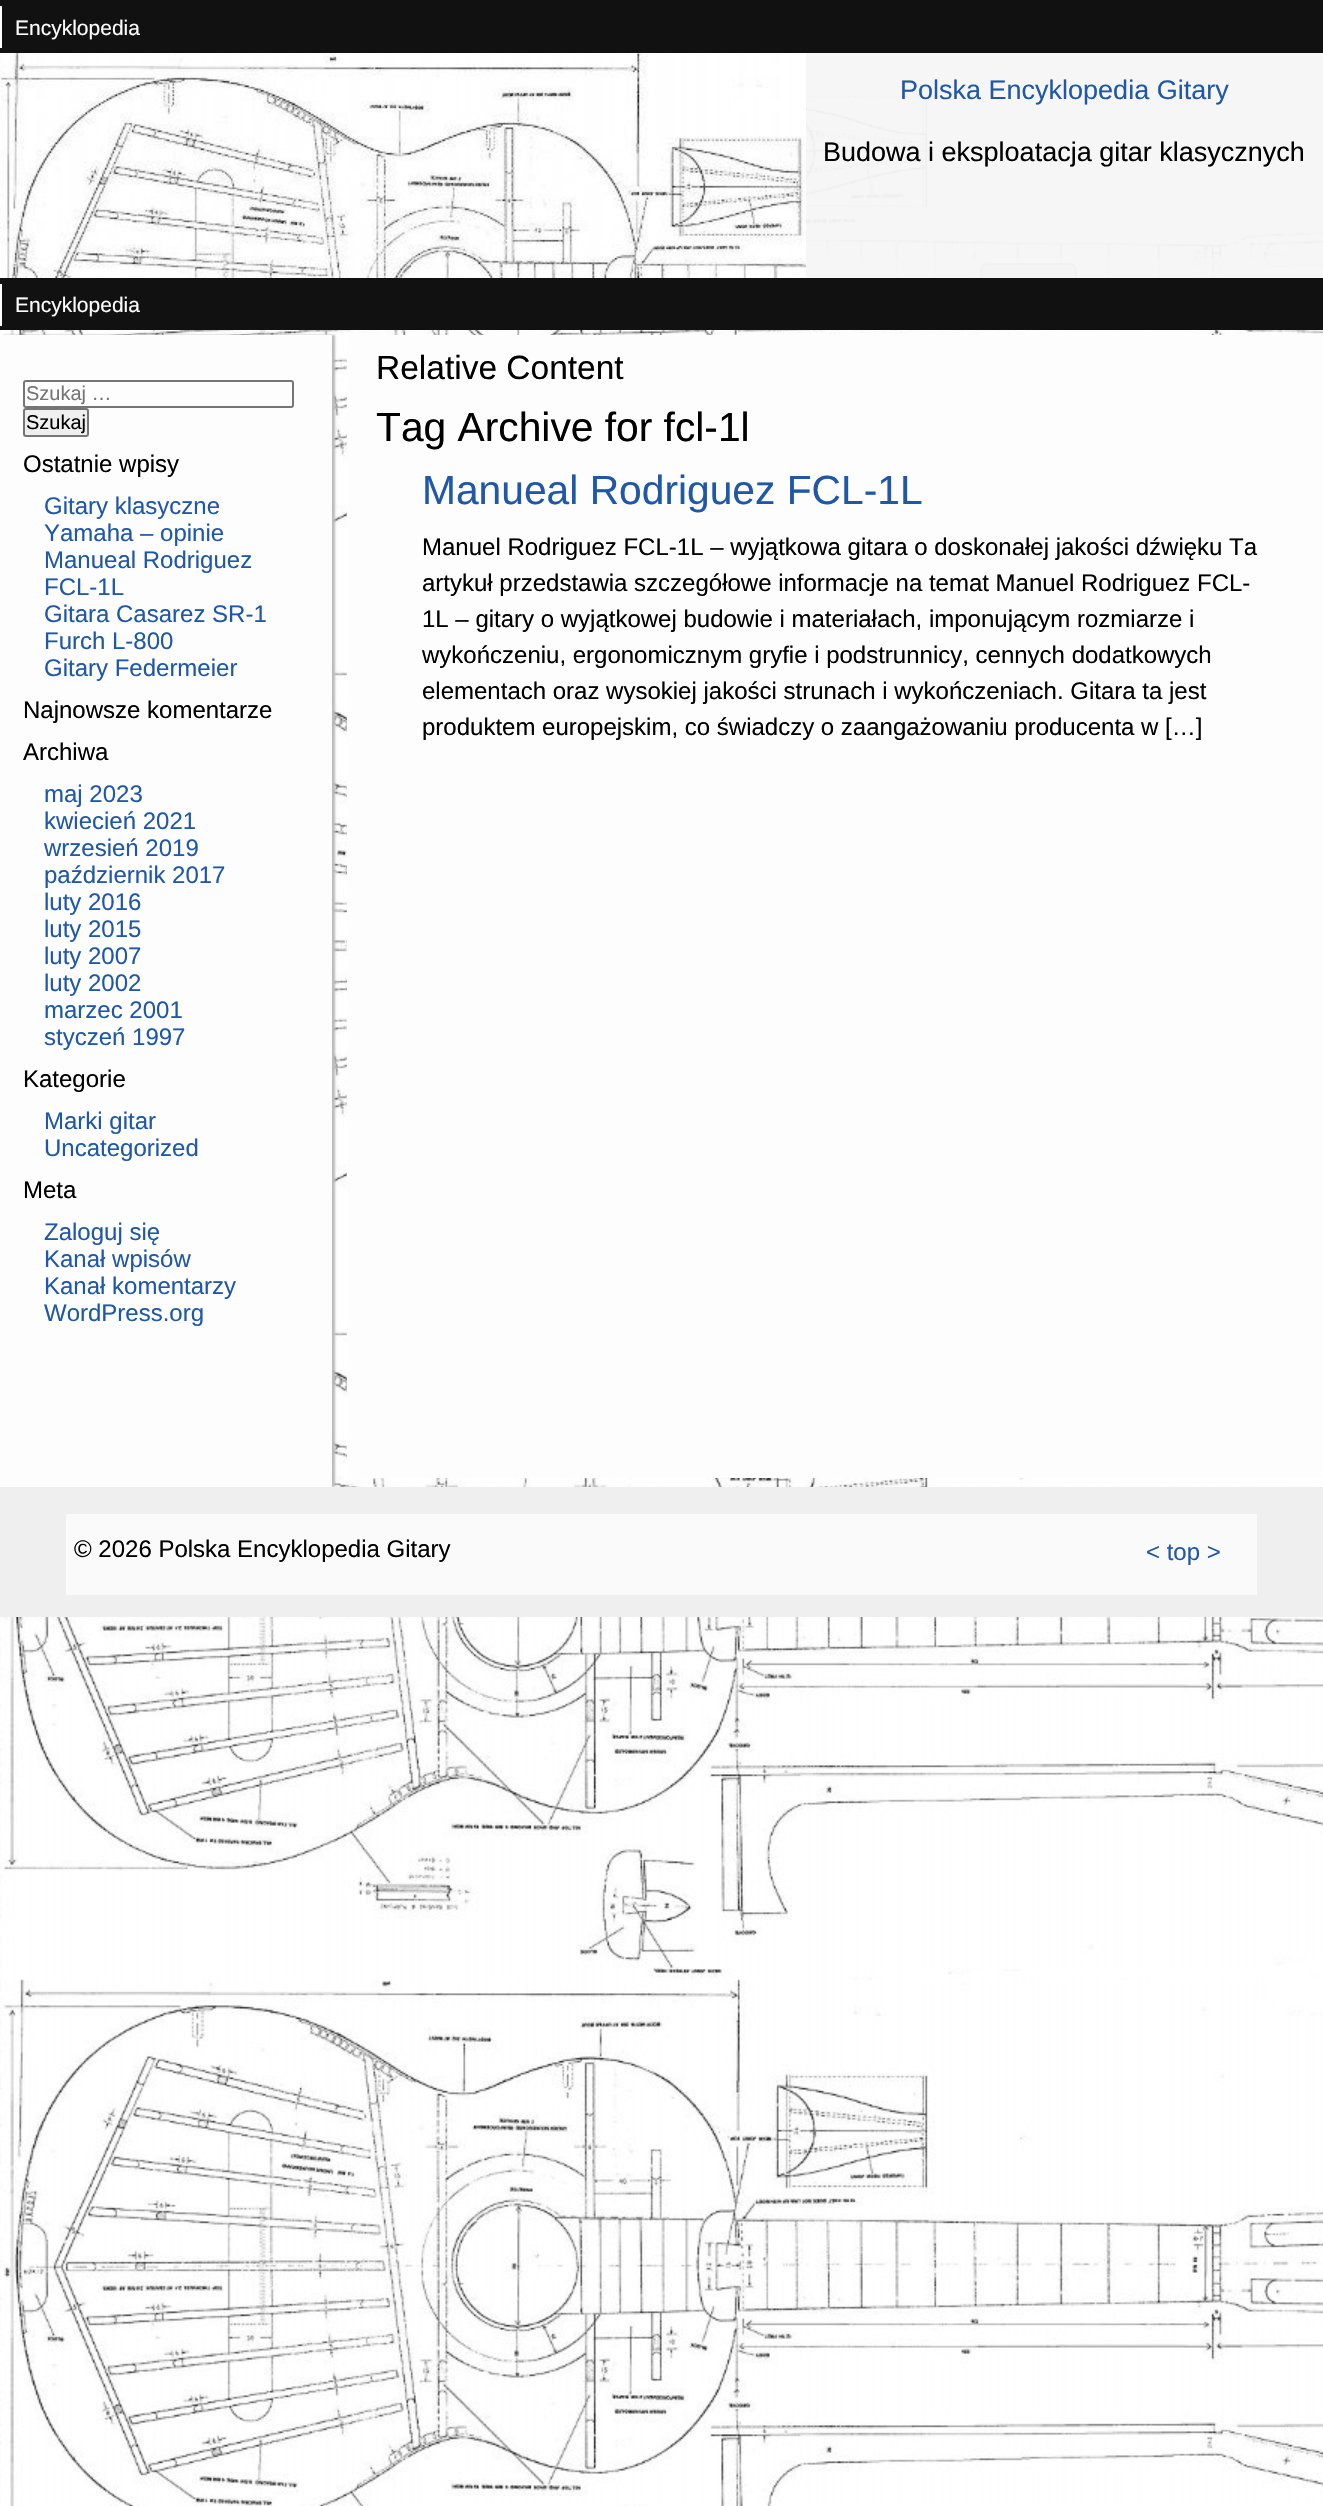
#include "include/core/SkBlurTypes.h"
#include "include/core/SkCanvas.h"
#include "include/core/SkData.h"
#include "include/core/SkFont.h"
#include "include/core/SkFontMgr.h"
#include "include/core/SkImage.h"
#include "include/core/SkMaskFilter.h"
#include "include/core/SkPaint.h"
#include "include/core/SkPathBuilder.h"
#include "include/core/SkTextBlob.h"
#include "include/effects/SkDashPathEffect.h"
#include "include/effects/SkGradientShader.h"
#include "include/utils/SkParsePath.h"

extern sk_sp<SkFontMgr> fontMgr;

void draw(SkCanvas* canvas) {
    SkPaint p;
    p.setAntiAlias(true);
    auto font = [&](const char* family, int weight, float size, bool italic = false) {
        SkFontStyle style(weight, SkFontStyle::kNormal_Width,
            italic ? SkFontStyle::kItalic_Slant : SkFontStyle::kUpright_Slant);
        SkFont result(fontMgr->matchFamilyStyle(family, style), size);
        result.setSubpixel(true);
        return result;
    };
    auto drawPhoto = [&](const char* path, float l, float t, float r, float b) {
        auto image = SkImages::DeferredFromEncodedData(SkData::MakeFromFileName(path));
        canvas->drawImageRect(image, SkRect::MakeLTRB(l, t, r, b), SkSamplingOptions());
    };
    canvas->clear(0xFFFFFFFF);
    drawPhoto("media/1.png", 0, 53, 1323, 2506);
    p.setColor(0xFF111111);
    canvas->drawRect(SkRect::MakeLTRB(0, 0, 1323, 53), p);
    p.setColor(0xFFFFFFFF);
    canvas->drawRect(SkRect::MakeLTRB(0, 6, 2, 48), p);
    auto font1 = font("Liberation Sans", 400, 21);
    p.setColor(0xFFFCFCFC);
    canvas->drawString("Encyklopedia", 15, 35, font1, p);
    p.setColor(0xA6FAFAFA);
    canvas->drawRect(SkRect::MakeLTRB(810, 258, 1323, 278), p);
    canvas->save();
    canvas->clipPath(SkPathBuilder().moveTo(988, 263).lineTo(1069, 263).cubicTo(1073.5f, 263, 1077, 266.5f, 1077, 271).lineTo(1077, 307).cubicTo(1077, 311.5f, 1073.5f, 315, 1069, 315).lineTo(988, 315).cubicTo(983.5f, 315, 980, 311.5f, 980, 307).lineTo(980, 271).cubicTo(980, 266.5f, 983.5f, 263, 988, 263).close().detach(), true);
    {
        const SkColor colors[] = {0xFFD8D5D7, 0xFFB0B8B3};
        const float stops[] = {0, 1};
        const SkPoint ends[] = {{1028, 264}, {1028, 314}};
        p.setShader(SkGradientShader::MakeLinear(ends, colors, stops, 2, SkTileMode::kClamp));
        p.setAlpha(255);
    }
    canvas->drawRect(SkRect::MakeLTRB(980, 264, 1077, 278), p);
    canvas->restore();
    p.setStyle(SkPaint::kStroke_Style);
    p.setStrokeWidth(2);
    p.setShader(nullptr);
    p.setColor(0xFF999999);
    canvas->drawRoundRect(SkRect::MakeLTRB(981, 264, 1076, 314), 7, 7, p);
    p.setStyle(SkPaint::kFill_Style);
    p.setColor(0xF2F5F5F5);
    canvas->drawRect(SkRect::MakeLTRB(806, 53, 1323, 278), p);
    drawPhoto("media/2.png", 0, 53, 806, 278);
    auto font2 = font("Liberation Sans", 400, 27);
    p.setColor(0xFF1F58A8);
    canvas->drawString("Polska Encyklopedia Gitary", 900, 99, font2, p);
    p.setColor(0xFF000000);
    canvas->drawString("Budowa i eksploatacja gitar klasycznych", 823, 161, font2, p);
    p.setColor(0xFF111111);
    canvas->drawRect(SkRect::MakeLTRB(0, 278, 1323, 330), p);
    p.setColor(0xFFFFFFFF);
    canvas->drawRect(SkRect::MakeLTRB(0, 284, 2, 326), p);
    p.setColor(0xFFFCFCFC);
    canvas->drawString("Encyklopedia", 15, 312, font1, p);
    p.setColor(0xFFBBBBBB);
    p.setMaskFilter(SkMaskFilter::MakeBlur(kNormal_SkBlurStyle, 1));
    canvas->drawRect(SkRect::MakeLTRB(3, 335, 335, 1487), p);
    p.setMaskFilter(nullptr);
    p.setColor(0xFFFDFDFD);
    canvas->drawRect(SkRect::MakeLTRB(0, 335, 332, 1487), p);
    p.setStyle(SkPaint::kStroke_Style);
    p.setColor(0xFF767676);
    canvas->drawRoundRect(SkRect::MakeLTRB(24, 381, 293, 407), 2, 2, p);
    auto font3 = font("Liberation Sans", 400, 20);
    p.setStyle(SkPaint::kFill_Style);
    p.setColor(0xFF757575);
    canvas->drawString("Szukaj …", 26, 400, font3, p);
    p.setColor(0xFFEFEFEF);
    canvas->drawRoundRect(SkRect::MakeLTRB(24, 409, 88, 436), 2, 2, p);
    p.setStyle(SkPaint::kStroke_Style);
    p.setColor(0xFF767676);
    canvas->drawRoundRect(SkRect::MakeLTRB(24, 409, 88, 436), 2, 2, p);
    p.setStyle(SkPaint::kFill_Style);
    p.setColor(0xFF000000);
    canvas->drawString("Szukaj", 26, 429, font3, p);
    auto font4 = font("Liberation Sans", 400, 24);
    canvas->drawString("Ostatnie wpisy", 23, 472, font4, p);
    p.setColor(0xFF1F58A8);
    {
        const struct { const char* s; float x, y; } items[] = {
            {"Gitary klasyczne", 44, 514},
            {"Yamaha – opinie", 44, 541},
            {"Manueal Rodriguez", 44, 568},
            {"FCL-1L", 44, 595},
            {"Gitara Casarez SR-1", 44, 622},
            {"Furch L-800", 44, 649},
            {"Gitary Federmeier", 44, 676},
        };
        for (auto [s, x, y] : items) {
            canvas->drawString(s, x, y, font4, p);
        }
    }
    p.setColor(0xFF000000);
    canvas->drawString("Najnowsze komentarze", 23, 718, font4, p);
    canvas->drawString("Archiwa", 23, 760, font4, p);
    p.setColor(0xFF1F58A8);
    {
        const struct { const char* s; float x, y; } items[] = {
            {"maj 2023", 44, 802},
            {"kwiecień 2021", 44, 829},
            {"wrzesień 2019", 44, 856},
            {"październik 2017", 44, 883},
            {"luty 2016", 44, 910},
            {"luty 2015", 44, 937},
            {"luty 2007", 44, 964},
            {"luty 2002", 44, 991},
            {"marzec 2001", 44, 1018},
            {"styczeń 1997", 44, 1045},
        };
        for (auto [s, x, y] : items) {
            canvas->drawString(s, x, y, font4, p);
        }
    }
    p.setColor(0xFF000000);
    canvas->drawString("Kategorie", 23, 1087, font4, p);
    p.setColor(0xFF1F58A8);
    canvas->drawString("Marki gitar", 44, 1129, font4, p);
    canvas->drawString("Uncategorized", 44, 1156, font4, p);
    p.setColor(0xFF000000);
    canvas->drawString("Meta", 23, 1198, font4, p);
    p.setColor(0xFF1F58A8);
    {
        const struct { const char* s; float x, y; } items[] = {
            {"Zaloguj się", 44, 1240},
            {"Kanał wpisów", 44, 1267},
            {"Kanał komentarzy", 44, 1294},
            {"WordPress.org", 44, 1321},
        };
        for (auto [s, x, y] : items) {
            canvas->drawString(s, x, y, font4, p);
        }
    }
    p.setColor(0xFFFDFDFD);
    canvas->drawRect(SkRect::MakeLTRB(347, 335, 1323, 1478), p);
    auto font5 = font("Liberation Sans", 400, 33.5f);
    p.setColor(0xFF000000);
    canvas->drawString("Relative Content", 376, 379, font5, p);
    auto font6 = font("Liberation Sans", 400, 40.75f);
    canvas->drawString("Tag Archive for fcl-1l", 376, 441, font6, p);
    p.setColor(0xFF1F58A8);
    canvas->drawString("Manueal Rodriguez FCL-1L", 422, 504, font6, p);
    p.setColor(0xFF000000);
    {
        const struct { const char* s; float x, y; } items[] = {
            {"Manuel Rodriguez FCL-1L – wyjątkowa gitara o doskonałej jakości dźwięku Ta", 422, 555},
            {"artykuł przedstawia szczegółowe informacje na temat Manuel Rodriguez FCL-", 422, 591},
            {"1L – gitary o wyjątkowej budowie i materiałach, imponującym rozmiarze i", 422, 627},
            {"wykończeniu, ergonomicznym gryfie i podstrunnicy, cennych dodatkowych", 422, 663},
            {"elementach oraz wysokiej jakości strunach i wykończeniach. Gitara ta jest", 422, 699},
            {"produktem europejskim, co świadczy o zaangażowaniu producenta w […]", 422, 735},
        };
        for (auto [s, x, y] : items) {
            canvas->drawString(s, x, y, font4, p);
        }
    }
    p.setColor(0xFFEFEFEF);
    canvas->drawRect(SkRect::MakeLTRB(0, 1487, 1323, 1617), p);
    p.setColor(0xFFFAFAFA);
    canvas->drawRect(SkRect::MakeLTRB(66, 1514, 1257, 1595), p);
    p.setColor(0xFF000000);
    canvas->drawString("© 2026 Polska Encyklopedia Gitary", 74, 1557, font4, p);
    p.setColor(0xFF1F58A8);
    canvas->drawString("< top >", 1146, 1560, font4, p);
}
